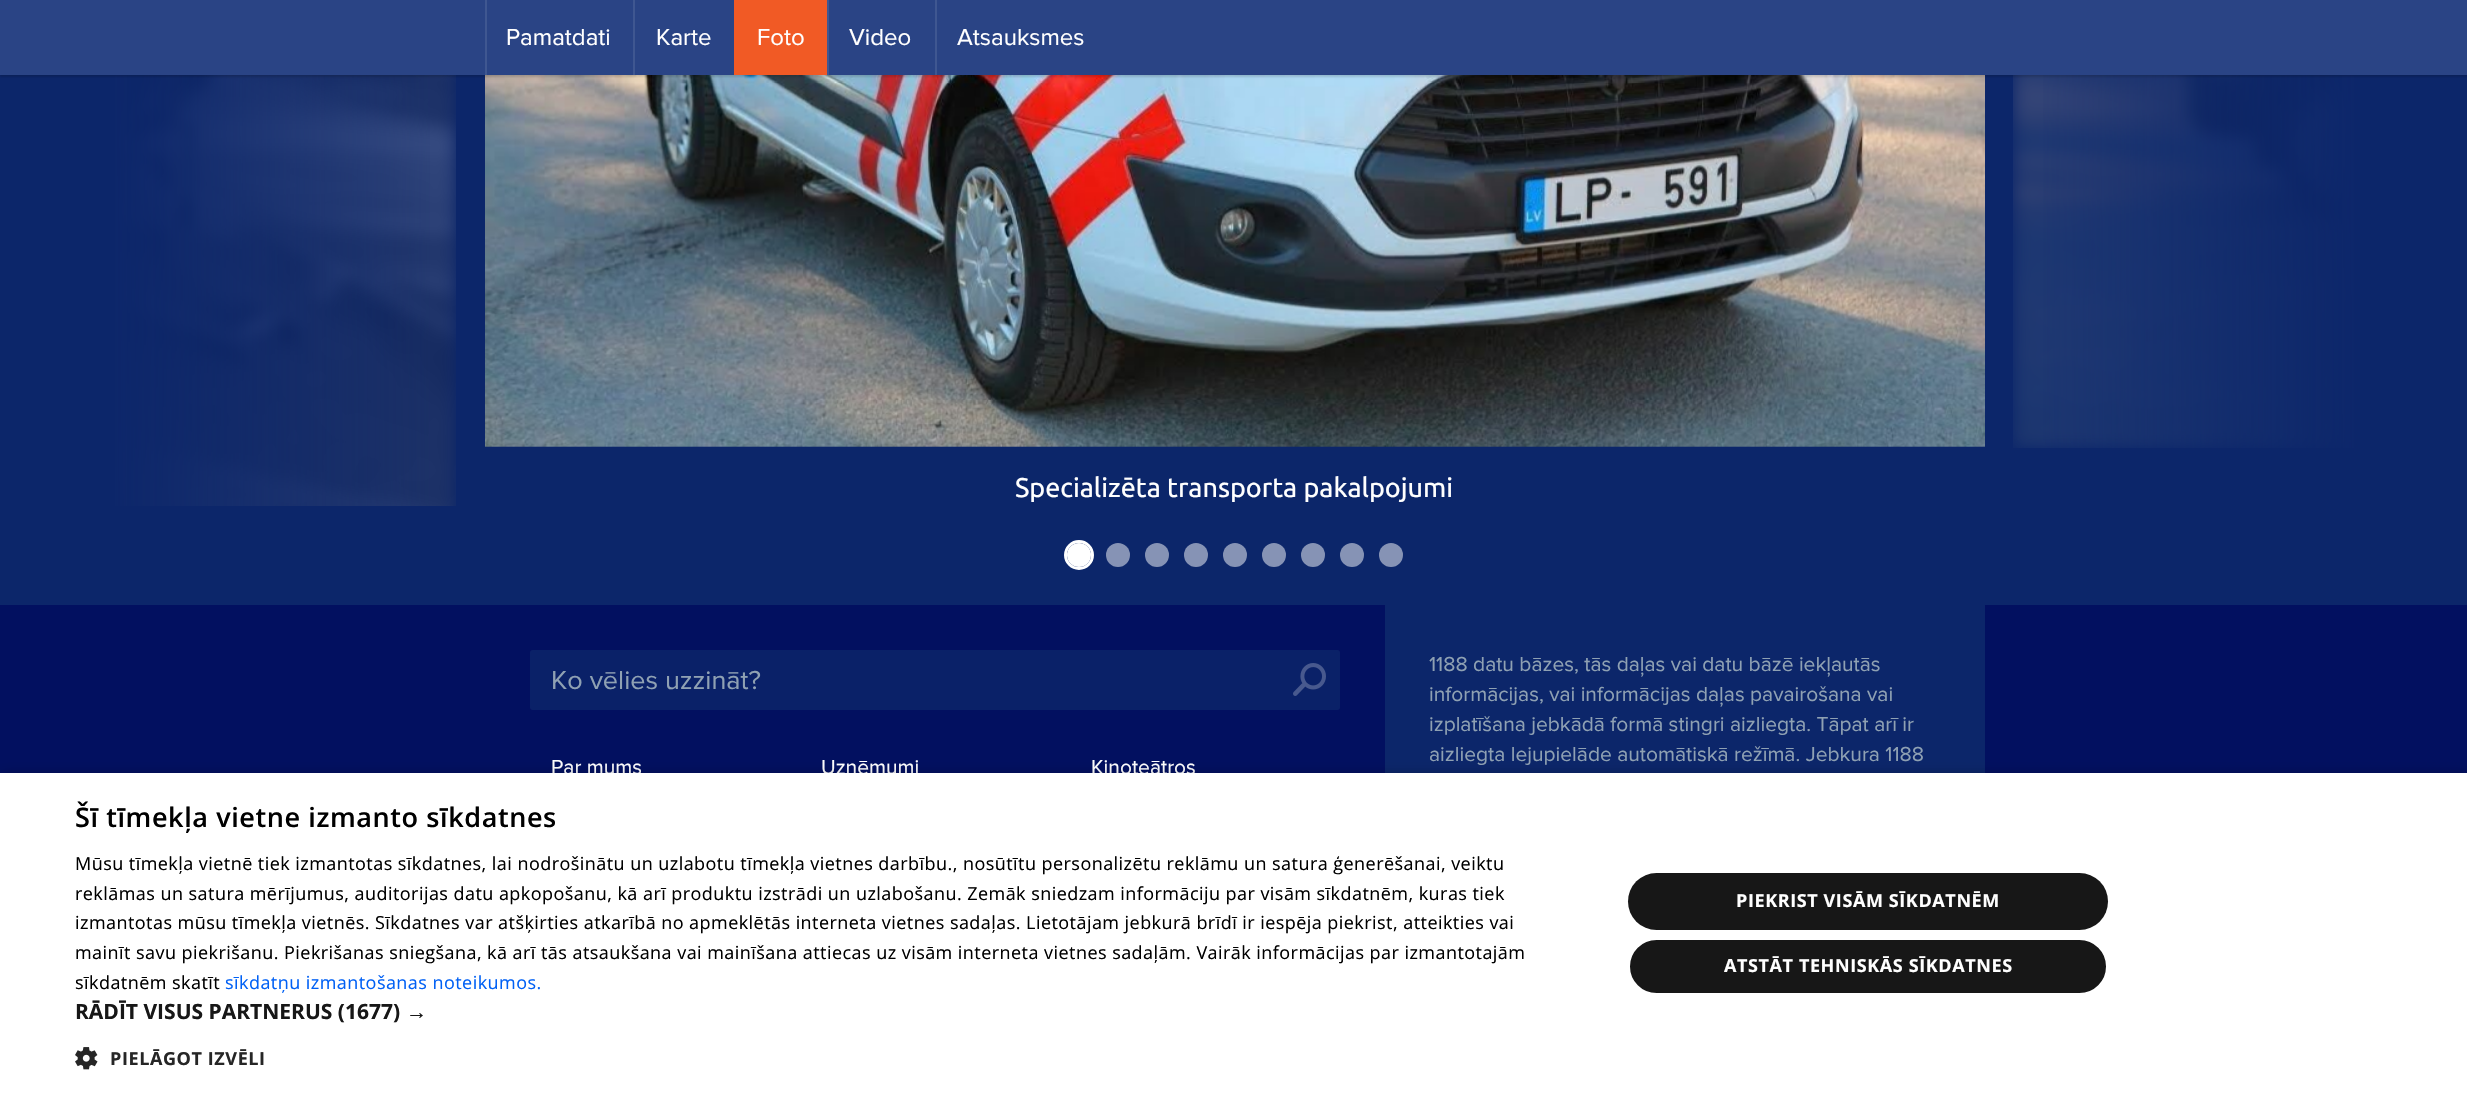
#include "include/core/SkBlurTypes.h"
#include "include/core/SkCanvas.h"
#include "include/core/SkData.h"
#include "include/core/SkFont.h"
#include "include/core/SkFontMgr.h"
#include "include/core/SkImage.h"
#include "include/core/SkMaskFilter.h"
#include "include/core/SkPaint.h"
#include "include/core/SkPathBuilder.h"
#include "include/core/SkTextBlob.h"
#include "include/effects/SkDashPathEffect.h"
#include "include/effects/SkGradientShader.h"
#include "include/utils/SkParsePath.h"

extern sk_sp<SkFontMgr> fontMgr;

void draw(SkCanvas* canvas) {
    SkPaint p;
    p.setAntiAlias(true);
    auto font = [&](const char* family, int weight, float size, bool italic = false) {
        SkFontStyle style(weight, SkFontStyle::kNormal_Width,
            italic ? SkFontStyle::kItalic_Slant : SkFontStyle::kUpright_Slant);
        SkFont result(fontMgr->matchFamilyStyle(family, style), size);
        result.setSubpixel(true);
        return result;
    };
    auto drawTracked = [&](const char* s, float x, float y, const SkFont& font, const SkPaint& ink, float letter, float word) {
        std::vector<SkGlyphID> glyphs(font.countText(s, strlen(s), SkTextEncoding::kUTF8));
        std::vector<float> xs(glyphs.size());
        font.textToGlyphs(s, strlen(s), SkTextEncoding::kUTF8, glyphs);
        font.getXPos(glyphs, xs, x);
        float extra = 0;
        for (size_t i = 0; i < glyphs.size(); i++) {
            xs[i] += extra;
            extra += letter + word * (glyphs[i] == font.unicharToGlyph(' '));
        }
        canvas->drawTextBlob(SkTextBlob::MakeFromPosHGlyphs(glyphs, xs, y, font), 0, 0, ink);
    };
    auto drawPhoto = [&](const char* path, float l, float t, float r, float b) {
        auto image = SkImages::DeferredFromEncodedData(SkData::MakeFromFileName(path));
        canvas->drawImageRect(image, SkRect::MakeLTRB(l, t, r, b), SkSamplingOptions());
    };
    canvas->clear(0xFF021060);
    p.setColor(0xFF0C266A);
    canvas->drawRect(SkRect::MakeLTRB(0, 75, 2467, 605), p);
    drawPhoto("media/1.png", 115, 75, 456, 506);
    {
        const SkColor colors[] = {0xFF0C266A, 0xFF0C266A, 0x000C266A};
        const float stops[] = {0, 0.25f, 1};
        const SkPoint ends[] = {{0, 11}, {450, 10}};
        p.setShader(SkGradientShader::MakeLinear(ends, colors, stops, 3, SkTileMode::kClamp));
        p.setAlpha(255);
    }
    canvas->drawRect(SkRect::MakeLTRB(115, 75, 430, 506), p);
    drawPhoto("media/2.png", 2013, 75, 2354, 448);
    {
        const SkColor colors[] = {0x000C266A, 0xFF0C266A, 0xFF0C266A};
        const float stops[] = {0, 0.75f, 1};
        const SkPoint ends[] = {{2018, 11}, {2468, 10}};
        p.setShader(SkGradientShader::MakeLinear(ends, colors, stops, 3, SkTileMode::kClamp));
        p.setAlpha(255);
    }
    canvas->drawRect(SkRect::MakeLTRB(2043, 75, 2354, 448), p);
    drawPhoto("media/3.png", 485, 75, 1985, 447);
    p.setShader(nullptr);
    p.setColor(0x26000000);
    p.setMaskFilter(SkMaskFilter::MakeBlur(kNormal_SkBlurStyle, 1));
    canvas->drawRect(SkRect::MakeLTRB(0, 2, 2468, 77), p);
    p.setMaskFilter(nullptr);
    p.setColor(0xFF2A4485);
    canvas->drawRect(SkRect::MakeLTRB(0, 0, 2467, 75), p);
    p.setColor(0xFF3F5791);
    canvas->drawRect(SkRect::MakeLTRB(485, 0, 487, 75), p);
    auto font1 = font("Proxima Nova", 400, 24);
    p.setColor(0xFFFFFFFF);
    canvas->drawString("Pamatdati", 506, 45, font1, p);
    p.setColor(0xFF3F5791);
    canvas->drawRect(SkRect::MakeLTRB(633, 0, 635, 75), p);
    p.setColor(0xFFFFFFFF);
    canvas->drawString("Karte", 656, 45, font1, p);
    p.setColor(0xFFF15A25);
    canvas->drawRect(SkRect::MakeLTRB(734, 0, 827, 75), p);
    p.setColor(0xFFFFFFFF);
    canvas->drawString("Foto", 757, 45, font1, p);
    p.setColor(0xFF3F5791);
    canvas->drawRect(SkRect::MakeLTRB(827, 0, 829, 75), p);
    p.setColor(0xFFFFFFFF);
    canvas->drawString("Video", 849, 45, font1, p);
    p.setColor(0xFF3F5791);
    canvas->drawRect(SkRect::MakeLTRB(935, 0, 937, 75), p);
    p.setColor(0xFFFFFFFF);
    canvas->drawString("Atsauksmes", 957, 45, font1, p);
    auto font2 = font("Ubuntu", 400, 27);
    canvas->drawString("Specializēta transporta pakalpojumi", 1015, 497, font2, p);
    p.setStyle(SkPaint::kStroke_Style);
    p.setStrokeWidth(3);
    canvas->drawCircle(1079, 555, 13.5f, p);
    p.setStyle(SkPaint::kFill_Style);
    canvas->drawCircle(1079, 555, 12, p);
    p.setColor(0xFF8693B5);
    canvas->drawCircle(1118, 555, 12, p);
    canvas->drawCircle(1157, 555, 12, p);
    canvas->drawCircle(1196, 555, 12, p);
    canvas->drawCircle(1235, 555, 12, p);
    canvas->drawCircle(1274, 555, 12, p);
    canvas->drawCircle(1313, 555, 12, p);
    canvas->drawCircle(1352, 555, 12, p);
    canvas->drawCircle(1391, 555, 12, p);
    p.setColor(0xFF0A2168);
    canvas->drawRoundRect(SkRect::MakeLTRB(530, 650, 1340, 710), 3, 3, p);
    auto font3 = font("Proxima Nova", 400, 27);
    p.setColor(0xFF8FA1B3);
    canvas->drawString("Ko vēlies uzzināt?", 551, 689, font3, p);
    drawPhoto("media/4.png", 1293, 663, 1326, 696);
    auto font4 = font("Proxima Nova", 400, 21);
    p.setColor(0xFFFFFFFF);
    {
        const struct { const char* s; float x, y; } items[] = {
            {"Par mums", 551, 774},
            {"Uzņēmumi", 821, 774},
            {"Kinoteātros", 1091, 774},
        };
        for (auto [s, x, y] : items) {
            canvas->drawString(s, x, y, font4, p);
        }
    }
    p.setColor(0xFF0C266A);
    canvas->drawRect(SkRect::MakeLTRB(1385, 605, 1985, 773), p);
    p.setColor(0xFF8FA1B3);
    {
        const struct { const char* s; float x, y; } items[] = {
            {"1188 datu bāzes, tās daļas vai datu bāzē iekļautās", 1429, 671},
            {"informācijas, vai informācijas daļas pavairošana vai", 1429, 701},
            {"izplatīšana jebkādā formā stingri aizliegta. Tāpat arī ir", 1429, 731},
            {"aizliegta lejupielāde automātiskā režīmā. Jebkura 1188", 1429, 761},
        };
        for (auto [s, x, y] : items) {
            canvas->drawString(s, x, y, font4, p);
        }
    }
    p.setColor(0x59000000);
    p.setMaskFilter(SkMaskFilter::MakeBlur(kNormal_SkBlurStyle, 6));
    canvas->drawRect(SkRect::MakeLTRB(2, 776, 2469, 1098), p);
    p.setMaskFilter(nullptr);
    p.setColor(0xFFFFFFFF);
    canvas->drawRect(SkRect::MakeLTRB(0, 773, 2467, 1095), p);
    auto font5 = font("Open Sans", 600, 27);
    p.setColor(0xFF000000);
    drawTracked("Šī tīmekļa vietne izmanto sīkdatnes", 75, 827, font5, p, 0.6f, 0);
    auto font6 = font("Open Sans", 400, 18);
    {
        const struct { const char* s; float x, y; } items[] = {
            {"Mūsu tīmekļa vietnē tiek izmantotas sīkdatnes, lai nodrošinātu un uzlabotu tīmekļa vietnes darbību., nosūtītu personalizētu reklāmu un satura ģenerēšanai, veiktu", 75, 870},
            {"reklāmas un satura mērījumus, auditorijas datu apkopošanu, kā arī produktu izstrādi un uzlabošanu. Zemāk sniedzam informāciju par visām sīkdatnēm, kuras tiek", 75, 900},
            {"izmantotas mūsu tīmekļa vietnēs. Sīkdatnes var atšķirties atkarībā no apmeklētās interneta vietnes sadaļas. Lietotājam jebkurā brīdī ir iespēja piekrist, atteikties vai", 75, 929},
            {"mainīt savu piekrišanu. Piekrišanas sniegšana, kā arī tās atsaukšana vai mainīšana attiecas uz visām interneta vietnes sadaļām. Vairāk informācijas par izmantotajām", 75, 959},
            {"sīkdatnēm skatīt", 75, 989},
        };
        for (auto [s, x, y] : items) {
            drawTracked(s, x, y, font6, p, 0.45f, 0);
        }
    }
    p.setColor(0xFF0060F5);
    drawTracked("sīkdatņu izmantošanas noteikumos.", 225, 989, font6, p, 0.45f, 0);
    auto font7 = font("Open Sans", 700, 21);
    p.setColor(0xFF171717);
    canvas->drawString("RĀDĪT VISUS PARTNERUS (1677)", 75, 1019, font7, p);
    auto font8 = font("Liberation Sans", 700, 21);
    canvas->drawString("→", 406, 1019, font8, p);
    drawPhoto("media/5.png", 75, 1047, 98, 1070);
    auto font9 = font("Open Sans", 700, 18);
    p.setColor(0xFF262626);
    drawTracked("PIELĀGOT IZVĒLI", 110, 1065, font9, p, 0.6f, 0);
    p.setColor(0xFF171717);
    canvas->drawRoundRect(SkRect::MakeLTRB(1628, 873, 2108, 930), 28.5f, 28.5f, p);
    p.setColor(0xFFFFFFFF);
    drawTracked("PIEKRIST VISĀM SĪKDATNĒM", 1736, 907, font9, p, 0.6f, 0);
    p.setColor(0xFF171717);
    canvas->drawRoundRect(SkRect::MakeLTRB(1629, 939, 2107, 994), 27.5f, 27.5f, p);
    p.setStyle(SkPaint::kStroke_Style);
    p.setStrokeWidth(2);
    p.setColor(0xFFFFFFFF);
    canvas->drawRoundRect(SkRect::MakeLTRB(1629, 939, 2107, 994), 27.5f, 27.5f, p);
    p.setStyle(SkPaint::kFill_Style);
    drawTracked("ATSTĀT TEHNISKĀS SĪKDATNES", 1724, 972, font9, p, 0.6f, 0);
}
